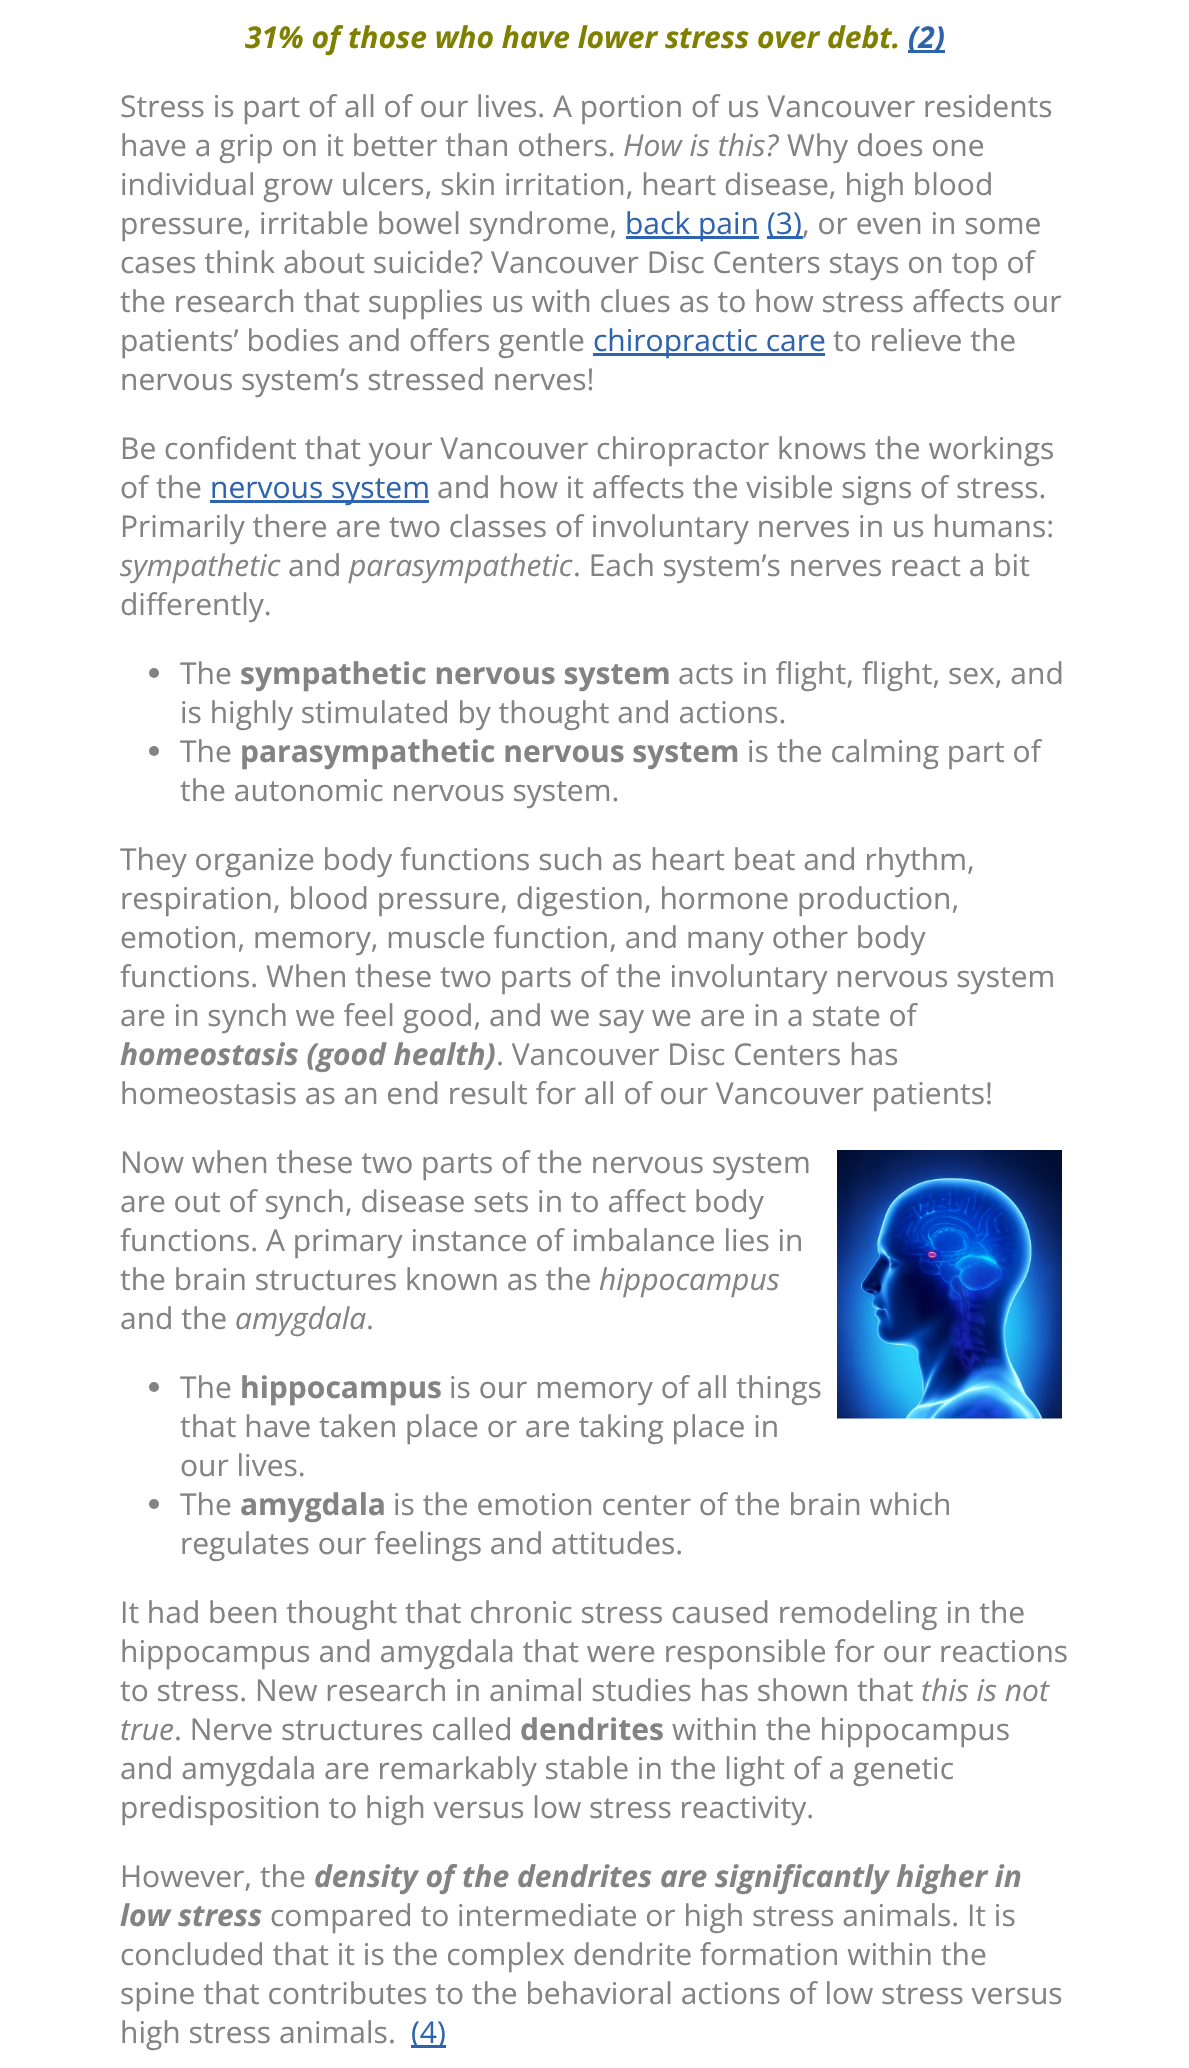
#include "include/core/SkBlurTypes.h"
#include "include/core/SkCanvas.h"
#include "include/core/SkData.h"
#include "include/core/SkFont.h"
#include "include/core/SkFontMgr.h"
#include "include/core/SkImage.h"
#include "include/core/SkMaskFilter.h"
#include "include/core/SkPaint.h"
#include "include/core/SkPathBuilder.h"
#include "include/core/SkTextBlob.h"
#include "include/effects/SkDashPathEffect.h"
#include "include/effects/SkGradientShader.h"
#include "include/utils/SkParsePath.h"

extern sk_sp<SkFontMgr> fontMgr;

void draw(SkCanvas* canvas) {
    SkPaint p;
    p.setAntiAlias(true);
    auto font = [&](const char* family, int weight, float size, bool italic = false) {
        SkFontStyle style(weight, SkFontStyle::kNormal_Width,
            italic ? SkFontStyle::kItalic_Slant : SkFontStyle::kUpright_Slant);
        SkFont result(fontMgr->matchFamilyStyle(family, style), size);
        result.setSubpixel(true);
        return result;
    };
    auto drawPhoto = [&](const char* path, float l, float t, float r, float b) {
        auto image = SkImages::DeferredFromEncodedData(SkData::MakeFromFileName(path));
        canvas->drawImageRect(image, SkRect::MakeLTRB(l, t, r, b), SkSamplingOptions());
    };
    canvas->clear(0xFFFFFFFF);
    auto font1 = font("Open Sans", 700, 30, true);
    p.setColor(0xFF808000);
    canvas->drawString("31% of those who have lower stress over debt.", 245, 48, font1, p);
    p.setColor(0xFF2E64AD);
    canvas->drawRect(SkRect::MakeLTRB(908, 50, 945, 53), p);
    canvas->drawString("(2)", 908, 48, font1, p);
    auto font2 = font("Open Sans", 400, 30);
    p.setColor(0xFF838383);
    canvas->drawString("Stress is part of all of our lives. A portion of us Vancouver residents", 120, 117, font2, p);
    canvas->drawString("have a grip on it better than others.", 120, 156, font2, p);
    auto font3 = font("Open Sans", 400, 30, true);
    canvas->drawString("How is this?", 623, 156, font3, p);
    {
        const struct { const char* s; float x, y; } items[] = {
            {"Why does one", 787, 156},
            {"individual grow ulcers, skin irritation, heart disease, high blood", 120, 195},
            {"pressure, irritable bowel syndrome,", 120, 234},
        };
        for (auto [s, x, y] : items) {
            canvas->drawString(s, x, y, font2, p);
        }
    }
    p.setColor(0xFF2E64AD);
    canvas->drawRect(SkRect::MakeLTRB(626, 236, 759, 239), p);
    canvas->drawString("back pain", 625, 234, font2, p);
    canvas->drawRect(SkRect::MakeLTRB(767, 236, 803, 239), p);
    canvas->drawString("(3)", 767, 234, font2, p);
    p.setColor(0xFF838383);
    {
        const struct { const char* s; float x, y; } items[] = {
            {", or even in some", 802, 234},
            {"cases think about suicide? Vancouver Disc Centers stays on top of", 120, 273},
            {"the research that supplies us with clues as to how stress affects our", 120, 312},
            {"patients’ bodies and offers gentle", 120, 351},
        };
        for (auto [s, x, y] : items) {
            canvas->drawString(s, x, y, font2, p);
        }
    }
    p.setColor(0xFF2E64AD);
    canvas->drawRect(SkRect::MakeLTRB(593, 353, 825, 356), p);
    canvas->drawString("chiropractic care", 593, 351, font2, p);
    p.setColor(0xFF838383);
    {
        const struct { const char* s; float x, y; } items[] = {
            {"to relieve the", 833, 351},
            {"nervous system’s stressed nerves!", 120, 390},
            {"Be confident that your Vancouver chiropractor knows the workings", 120, 459},
            {"of the", 120, 498},
        };
        for (auto [s, x, y] : items) {
            canvas->drawString(s, x, y, font2, p);
        }
    }
    p.setColor(0xFF2E64AD);
    canvas->drawRect(SkRect::MakeLTRB(210, 500, 429, 503), p);
    canvas->drawString("nervous system", 210, 498, font2, p);
    p.setColor(0xFF838383);
    canvas->drawString("and how it affects the visible signs of stress.", 437, 498, font2, p);
    canvas->drawString("Primarily there are two classes of involuntary nerves in us humans:", 120, 537, font2, p);
    canvas->drawString("sympathetic", 120, 576, font3, p);
    canvas->drawString("and", 288, 576, font2, p);
    canvas->drawString("parasympathetic", 349, 576, font3, p);
    canvas->drawString(". Each system’s nerves react a bit", 573, 576, font2, p);
    canvas->drawString("differently.", 120, 615, font2, p);
    canvas->drawCircle(154, 673, 5, p);
    canvas->drawString("The", 180, 684, font2, p);
    auto font4 = font("Open Sans", 700, 30);
    canvas->drawString("sympathetic nervous system", 240, 684, font4, p);
    canvas->drawString("acts in flight, flight, sex, and", 678, 684, font2, p);
    canvas->drawString("is highly stimulated by thought and actions.", 180, 723, font2, p);
    canvas->drawCircle(154, 751, 5, p);
    canvas->drawString("The", 180, 762, font2, p);
    canvas->drawString("parasympathetic nervous system", 240, 762, font4, p);
    {
        const struct { const char* s; float x, y; } items[] = {
            {"is the calming part of", 747, 762},
            {"the autonomic nervous system.", 180, 801},
            {"They organize body functions such as heart beat and rhythm,", 120, 870},
            {"respiration, blood pressure, digestion, hormone production,", 120, 909},
            {"emotion, memory, muscle function, and many other body", 120, 948},
            {"functions. When these two parts of the involuntary nervous system", 120, 987},
            {"are in synch we feel good, and we say we are in a state of", 120, 1026},
        };
        for (auto [s, x, y] : items) {
            canvas->drawString(s, x, y, font2, p);
        }
    }
    canvas->drawString("homeostasis (good health)", 120, 1065, font1, p);
    {
        const struct { const char* s; float x, y; } items[] = {
            {". Vancouver Disc Centers has", 496, 1065},
            {"homeostasis as an end result for all of our Vancouver patients!", 120, 1104},
            {"Now when these two parts of the nervous system", 120, 1173},
        };
        for (auto [s, x, y] : items) {
            canvas->drawString(s, x, y, font2, p);
        }
    }
    drawPhoto("media/1.png", 837, 1150, 1062, 1419);
    {
        const struct { const char* s; float x, y; } items[] = {
            {"are out of synch, disease sets in to affect body", 120, 1212},
            {"functions. A primary instance of imbalance lies in", 120, 1251},
            {"the brain structures known as the", 120, 1290},
        };
        for (auto [s, x, y] : items) {
            canvas->drawString(s, x, y, font2, p);
        }
    }
    canvas->drawString("hippocampus", 599, 1290, font3, p);
    canvas->drawString("and the", 120, 1329, font2, p);
    canvas->drawString("amygdala", 235, 1329, font3, p);
    canvas->drawString(".", 366, 1329, font2, p);
    canvas->drawCircle(154, 1387, 5, p);
    canvas->drawString("The", 180, 1398, font2, p);
    canvas->drawString("hippocampus", 240, 1398, font4, p);
    {
        const struct { const char* s; float x, y; } items[] = {
            {"is our memory of all things", 449, 1398},
            {"that have taken place or are taking place in", 180, 1437},
            {"our lives.", 180, 1476},
        };
        for (auto [s, x, y] : items) {
            canvas->drawString(s, x, y, font2, p);
        }
    }
    canvas->drawCircle(154, 1504, 5, p);
    canvas->drawString("The", 180, 1515, font2, p);
    canvas->drawString("amygdala", 240, 1515, font4, p);
    {
        const struct { const char* s; float x, y; } items[] = {
            {"is the emotion center of the brain which", 393, 1515},
            {"regulates our feelings and attitudes.", 180, 1554},
            {"It had been thought that chronic stress caused remodeling in the", 120, 1623},
            {"hippocampus and amygdala that were responsible for our reactions", 120, 1662},
            {"to stress. New research in animal studies has shown that", 120, 1701},
        };
        for (auto [s, x, y] : items) {
            canvas->drawString(s, x, y, font2, p);
        }
    }
    canvas->drawString("this is not", 921, 1701, font3, p);
    canvas->drawString("true", 120, 1740, font3, p);
    canvas->drawString(". Nerve structures called", 174, 1740, font2, p);
    canvas->drawString("dendrites", 520, 1740, font4, p);
    {
        const struct { const char* s; float x, y; } items[] = {
            {"within the hippocampus", 672, 1740},
            {"and amygdala are remarkably stable in the light of a genetic", 120, 1779},
            {"predisposition to high versus low stress reactivity.", 120, 1818},
            {"However, the", 120, 1887},
        };
        for (auto [s, x, y] : items) {
            canvas->drawString(s, x, y, font2, p);
        }
    }
    canvas->drawString("density of the dendrites are significantly higher in", 314, 1887, font1, p);
    canvas->drawString("low stress", 120, 1926, font1, p);
    {
        const struct { const char* s; float x, y; } items[] = {
            {"compared to intermediate or high stress animals. It is", 270, 1926},
            {"concluded that it is the complex dendrite formation within the", 120, 1965},
            {"spine that contributes to the behavioral actions of low stress versus", 120, 2004},
            {"high stress animals.", 120, 2043},
        };
        for (auto [s, x, y] : items) {
            canvas->drawString(s, x, y, font2, p);
        }
    }
    p.setColor(0xFF2E64AD);
    canvas->drawRect(SkRect::MakeLTRB(411, 2045, 446, 2048), p);
    canvas->drawString("(4)", 411, 2043, font2, p);
}
